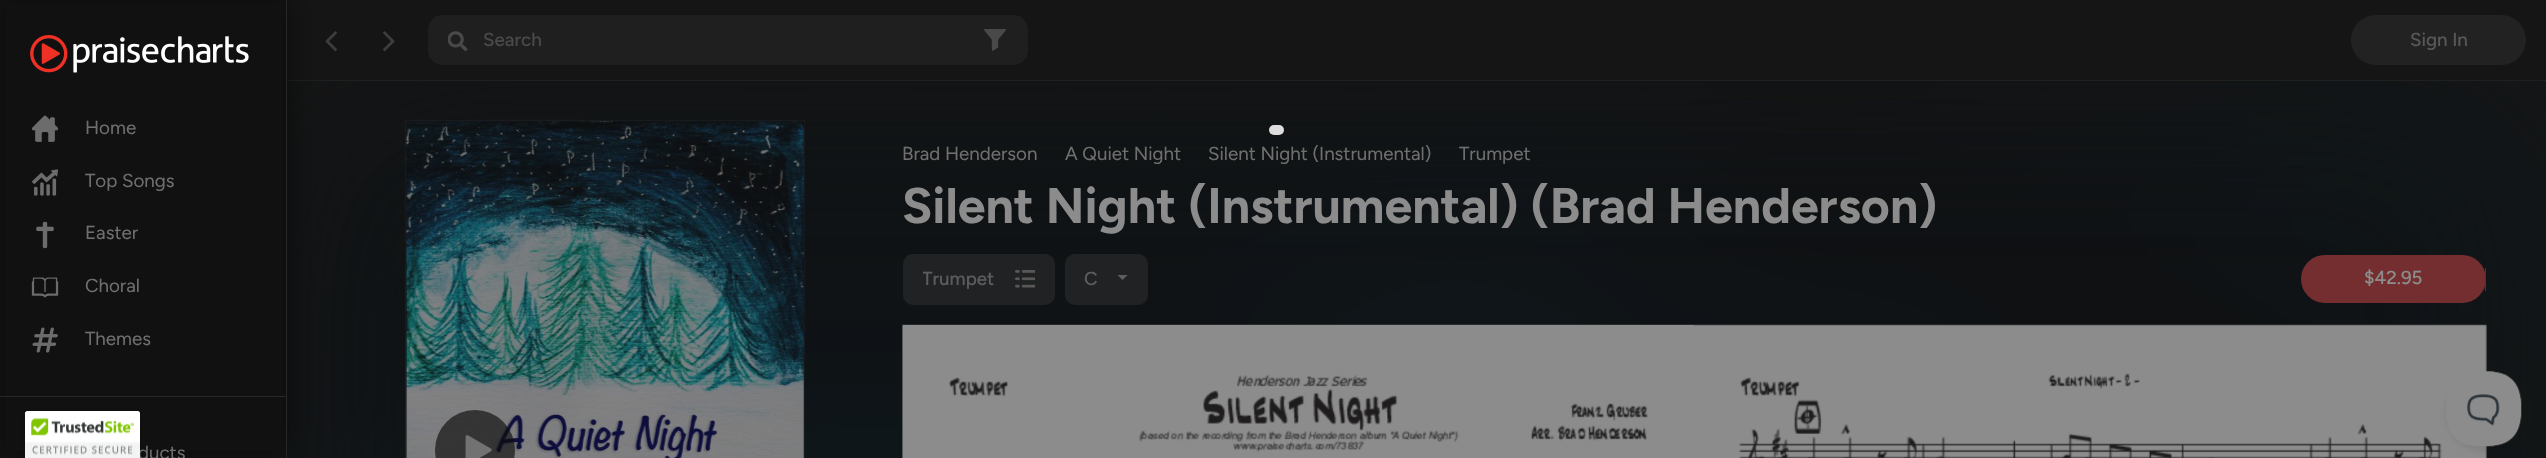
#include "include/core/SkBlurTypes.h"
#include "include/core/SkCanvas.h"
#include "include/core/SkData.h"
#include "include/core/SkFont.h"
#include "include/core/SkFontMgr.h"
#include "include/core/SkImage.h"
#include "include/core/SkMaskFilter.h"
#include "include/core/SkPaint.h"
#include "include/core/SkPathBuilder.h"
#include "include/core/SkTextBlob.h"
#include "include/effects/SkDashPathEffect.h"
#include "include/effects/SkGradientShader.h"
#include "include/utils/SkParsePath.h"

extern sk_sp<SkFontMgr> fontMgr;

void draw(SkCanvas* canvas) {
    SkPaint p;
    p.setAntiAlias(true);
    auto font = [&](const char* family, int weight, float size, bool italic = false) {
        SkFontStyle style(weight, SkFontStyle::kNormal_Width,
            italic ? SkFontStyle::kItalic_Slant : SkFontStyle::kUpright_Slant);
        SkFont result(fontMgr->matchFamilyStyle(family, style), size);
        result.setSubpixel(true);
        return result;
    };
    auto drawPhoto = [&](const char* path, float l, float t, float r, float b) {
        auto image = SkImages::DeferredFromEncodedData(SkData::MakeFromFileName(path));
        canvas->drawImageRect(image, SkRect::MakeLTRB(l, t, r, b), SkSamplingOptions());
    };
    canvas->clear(0xFF151515);
    p.setColor(0xFF202020);
    canvas->drawRect(SkRect::MakeLTRB(288, 80, 2546, 81), p);
    drawPhoto("media/7.png", 325, 31, 337, 51);
    drawPhoto("media/11.png", 288, 81, 2546, 458);
    p.setColor(0x80000000);
    p.setMaskFilter(SkMaskFilter::MakeBlur(kNormal_SkBlurStyle, 14));
    canvas->drawRect(SkRect::MakeLTRB(0, -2, 288, 456), p);
    p.setMaskFilter(nullptr);
    p.setColor(0xFF111111);
    canvas->drawRect(SkRect::MakeLTRB(5, 3, 283, 451), p);
    p.setColor(0xFF272727);
    canvas->drawRect(SkRect::MakeLTRB(286, 0, 287, 458), p);
    drawPhoto("media/1.png", 30, 35, 249, 73);
    canvas->drawRect(SkRect::MakeLTRB(0, 396, 286, 397), p);
    drawPhoto("media/2.png", 32, 115, 59, 142);
    auto font1 = font("Figtree", 400, 18.75f);
    p.setColor(0xFF6F6F6F);
    canvas->drawString("Home", 85, 134, font1, p);
    drawPhoto("media/3.png", 32, 169, 58, 196);
    canvas->drawString("Top Songs", 85, 187, font1, p);
    drawPhoto("media/4.png", 36, 221, 54, 249);
    canvas->drawString("Easter", 85, 239, font1, p);
    drawPhoto("media/5.png", 31, 277, 59, 298);
    canvas->drawString("Choral", 85, 292, font1, p);
    drawPhoto("media/6.png", 32, 327, 58, 353);
    canvas->drawString("Themes", 85, 345, font1, p);
    canvas->drawString("ducts", 138, 459, font1, p);
    drawPhoto("media/8.png", 383, 31, 395, 51);
    p.setColor(0xFF1F1F1F);
    canvas->drawRoundRect(SkRect::MakeLTRB(428, 15, 1028, 65), 15, 15, p);
    drawPhoto("media/9.png", 448, 31, 468, 51);
    auto font2 = font("Figtree", 500, 18.75f);
    p.setColor(0xFF494949);
    canvas->drawString("Search", 483, 46, font2, p);
    drawPhoto("media/10.png", 984, 29, 1006, 51);
    p.setColor(0xFF222223);
    canvas->drawRoundRect(SkRect::MakeLTRB(2351, 15, 2526, 65), 25, 25, p);
    p.setColor(0xFF575758);
    canvas->drawString("Sign In", 2410, 46, font2, p);
    p.setStyle(SkPaint::kStroke_Style);
    p.setStrokeWidth(1);
    p.setColor(0x0F8C8C8C);
    canvas->drawRect(SkRect::MakeLTRB(405.5f, 120.5f, 804.5f, 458.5f), p);
    drawPhoto("media/12.png", 405, 121, 804, 458);
    p.setStyle(SkPaint::kFill_Style);
    p.setColor(0xA60D0D0D);
    canvas->drawCircle(475, 450, 40, p);
    drawPhoto("media/13.png", 465, 435, 492, 458);
    p.setColor(0xFF6F6F6F);
    {
        const struct { const char* s; float x, y; } items[] = {
            {"Brad Henderson", 902, 160},
            {"A Quiet Night", 1065, 160},
            {"Silent Night (Instrumental)", 1208, 160},
            {"Trumpet", 1459, 160},
        };
        for (auto [s, x, y] : items) {
            canvas->drawString(s, x, y, font1, p);
        }
    }
    auto font3 = font("Figtree", 700, 50);
    p.setColor(0xFF8C8C8C);
    canvas->drawString("Silent Night (Instrumental) (Brad Henderson)", 902, 223, font3, p);
    p.setColor(0xFF202223);
    canvas->drawRoundRect(SkRect::MakeLTRB(903, 254, 1055, 305), 10, 10, p);
    canvas->save();
    canvas->clipRect(SkRect::MakeLTRB(923, 266, 1015, 291));
    p.setColor(0xFF5D5D5E);
    canvas->drawString("Trumpet", 922, 285, font2, p);
    canvas->restore();
    drawPhoto("media/14.png", 1015, 270, 1035, 288);
    p.setColor(0xFF202223);
    canvas->drawRoundRect(SkRect::MakeLTRB(1065, 254, 1148, 305), 10, 10, p);
    p.setColor(0xFF5D5D5E);
    canvas->drawString("C", 1084, 285, font2, p);
    canvas->drawPath(SkPathBuilder().moveTo(1117.5f, 275).lineTo(1127.5f, 275).lineTo(1122.5f, 280).close().detach(), p);
    p.setColor(0xFF742E2F);
    canvas->drawRoundRect(SkRect::MakeLTRB(2301, 255, 2486, 303), 24, 24, p);
    p.setColor(0xFF652728);
    canvas->drawRect(SkRect::MakeLTRB(2485, 268, 2486, 291), p);
    p.setColor(0xFF8C8C8C);
    canvas->drawString("$42.95", 2364, 284, font2, p);
    canvas->drawRect(SkRect::MakeLTRB(903, 325, 1694, 458), p);
    drawPhoto("media/16.png", 1694, 324, 2487, 458);
    drawPhoto("media/15.png", 902, 324, 1695, 458);
    p.setStyle(SkPaint::kStroke_Style);
    p.setStrokeWidth(10);
    p.setStrokeCap(SkPaint::kRound_Cap);
    p.setColor(0xFFDDDDDD);
    canvas->drawPath(SkPathBuilder().moveTo(1274, 130).lineTo(1279, 130).detach(), p);
    p.setStyle(SkPaint::kFill_Style);
    p.setColor(0x33000000);
    p.setMaskFilter(SkMaskFilter::MakeBlur(kNormal_SkBlurStyle, 3));
    canvas->drawRoundRect(SkRect::MakeLTRB(25, 411, 140, 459), 2.5f, 2.5f, p);
    p.setMaskFilter(nullptr);
    p.setColor(0xFFFFFFFF);
    canvas->drawPath(SkPathBuilder().moveTo(27.5f, 411).lineTo(137.5f, 411).cubicTo(139, 411, 140, 412, 140, 413.5f).lineTo(140, 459).lineTo(25, 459).lineTo(25, 413.5f).cubicTo(25, 412, 26, 411, 27.5f, 411).close().detach(), p);
    drawPhoto("media/17.png", 25, 411, 140, 458);
    p.setColor(0x1A0D0D0D);
    p.setMaskFilter(SkMaskFilter::MakeBlur(kNormal_SkBlurStyle, 4.5f));
    canvas->drawRoundRect(SkRect::MakeLTRB(2446, 376, 2521, 451), 37.5f, 37.5f, p);
    p.setMaskFilter(nullptr);
    drawPhoto("media/18.png", 2446, 371, 2522, 447);
}
